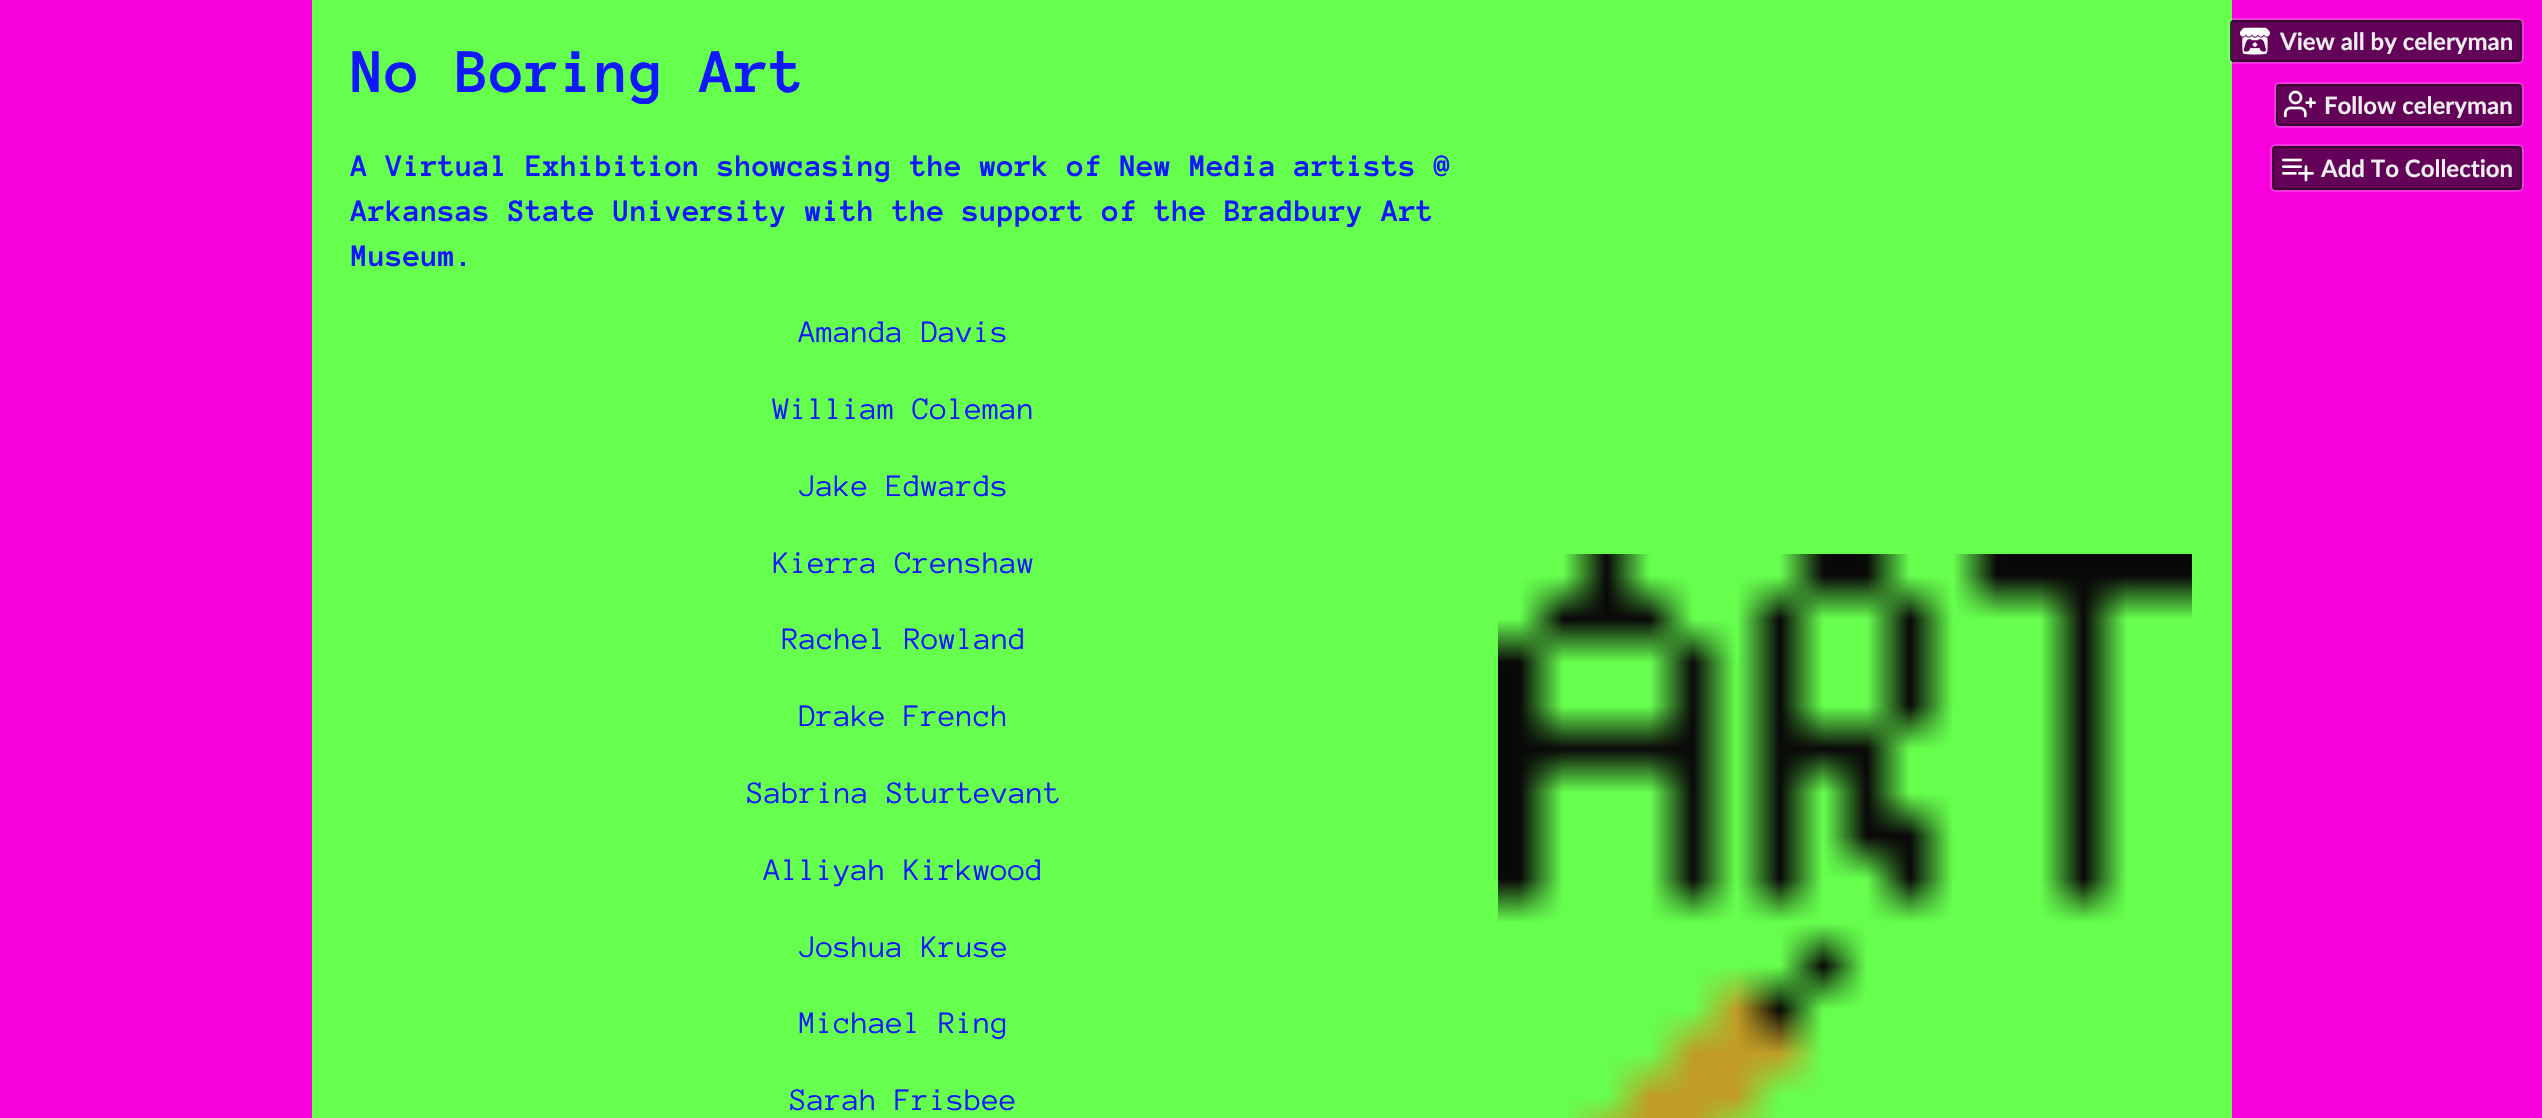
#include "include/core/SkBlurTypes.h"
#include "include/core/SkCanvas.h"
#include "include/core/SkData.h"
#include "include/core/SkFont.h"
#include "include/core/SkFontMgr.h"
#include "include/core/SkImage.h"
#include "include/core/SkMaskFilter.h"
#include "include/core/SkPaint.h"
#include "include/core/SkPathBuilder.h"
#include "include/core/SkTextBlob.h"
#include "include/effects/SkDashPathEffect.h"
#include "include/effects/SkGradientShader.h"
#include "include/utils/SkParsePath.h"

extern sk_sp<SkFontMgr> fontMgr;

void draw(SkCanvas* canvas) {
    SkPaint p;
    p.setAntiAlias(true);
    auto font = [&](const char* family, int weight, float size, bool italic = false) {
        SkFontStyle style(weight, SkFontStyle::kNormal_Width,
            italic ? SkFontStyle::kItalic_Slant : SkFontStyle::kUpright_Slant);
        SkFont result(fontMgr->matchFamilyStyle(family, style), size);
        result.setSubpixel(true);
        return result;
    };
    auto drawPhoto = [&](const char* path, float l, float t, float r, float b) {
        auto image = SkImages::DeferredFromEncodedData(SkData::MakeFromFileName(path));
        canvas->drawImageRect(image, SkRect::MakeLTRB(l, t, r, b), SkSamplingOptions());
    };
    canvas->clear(0xFFF700DC);
    p.setColor(0xFF66FF4E);
    canvas->drawRect(SkRect::MakeLTRB(312, 0, 2232, 1118), p);
    canvas->save();
    canvas->clipRect(SkRect::MakeLTRB(312, 0, 2232, 104));
    auto font1 = font("Anonymous Pro", 700, 64);
    p.setColor(0xFF1117FF);
    canvas->drawString("No Boring Art", 351, 92, font1, p);
    canvas->restore();
    auto font2 = font("Anonymous Pro", 700, 32);
    {
        const struct { const char* s; float x, y; } items[] = {
            {"A Virtual Exhibition showcasing the work of New Media artists @", 351, 176},
            {"Arkansas State University with the support of the Bradbury Art", 351, 221},
            {"Museum.", 351, 266},
        };
        for (auto [s, x, y] : items) {
            canvas->drawString(s, x, y, font2, p);
        }
    }
    auto font3 = font("Anonymous Pro", 400, 32);
    {
        const struct { const char* s; float x, y; } items[] = {
            {"Amanda Davis", 799, 342},
            {"William Coleman", 773, 419},
            {"Jake Edwards", 799, 496},
            {"Kierra Crenshaw", 773, 573},
            {"Rachel Rowland", 782, 649},
            {"Drake French", 799, 726},
            {"Sabrina Sturtevant", 747, 803},
            {"Alliyah Kirkwood", 764, 880},
            {"Joshua Kruse", 799, 957},
            {"Michael Ring", 799, 1033},
            {"Sarah Frisbee", 790, 1110},
        };
        for (auto [s, x, y] : items) {
            canvas->drawString(s, x, y, font3, p);
        }
    }
    drawPhoto("media/1.png", 1498, 554, 2192, 1118);
    p.setStyle(SkPaint::kStroke_Style);
    p.setStrokeWidth(2);
    p.setColor(0x33FFFFFF);
    canvas->drawRoundRect(SkRect::MakeLTRB(2229, 19, 2523, 63), 5, 5, p);
    p.setStyle(SkPaint::kFill_Style);
    p.setColor(0x99000000);
    canvas->drawRoundRect(SkRect::MakeLTRB(2230, 20, 2522, 62), 4, 4, p);
    p.setStyle(SkPaint::kStroke_Style);
    p.setColor(0x800A0A0A);
    canvas->drawRoundRect(SkRect::MakeLTRB(2231, 21, 2521, 61), 3, 3, p);
    drawPhoto("media/2.png", 2240, 27, 2270, 55);
    auto font4 = font("Lato", 700, 24);
    p.setStyle(SkPaint::kFill_Style);
    p.setColor(0xFFEEEEEE);
    canvas->drawString("View all by celeryman", 2280, 50, font4, p);
    p.setStyle(SkPaint::kStroke_Style);
    p.setColor(0xFFF933E3);
    canvas->drawRoundRect(SkRect::MakeLTRB(2275, 83, 2523, 127), 5, 5, p);
    p.setStyle(SkPaint::kFill_Style);
    p.setColor(0x99000000);
    canvas->drawRoundRect(SkRect::MakeLTRB(2276, 84, 2522, 126), 4, 4, p);
    p.setStyle(SkPaint::kStroke_Style);
    p.setColor(0x800A0A0A);
    canvas->drawRoundRect(SkRect::MakeLTRB(2277, 85, 2521, 125), 3, 3, p);
    drawPhoto("media/3.png", 2284, 90, 2316, 118);
    p.setStyle(SkPaint::kFill_Style);
    p.setColor(0xFFEEEEEE);
    canvas->drawString("Follow celeryman", 2324, 114, font4, p);
    p.setStyle(SkPaint::kStroke_Style);
    p.setColor(0xFFF933E3);
    canvas->drawRoundRect(SkRect::MakeLTRB(2271, 145, 2523, 191), 5, 5, p);
    p.setStyle(SkPaint::kFill_Style);
    p.setColor(0x99000000);
    canvas->drawRoundRect(SkRect::MakeLTRB(2272, 146, 2522, 190), 4, 4, p);
    p.setStyle(SkPaint::kStroke_Style);
    p.setColor(0x800A0A0A);
    canvas->drawRoundRect(SkRect::MakeLTRB(2273, 147, 2521, 189), 3, 3, p);
    drawPhoto("media/4.png", 2282, 158, 2314, 182);
    p.setStyle(SkPaint::kFill_Style);
    p.setColor(0xFFEEEEEE);
    canvas->drawString("Add To Collection", 2321, 177, font4, p);
}
